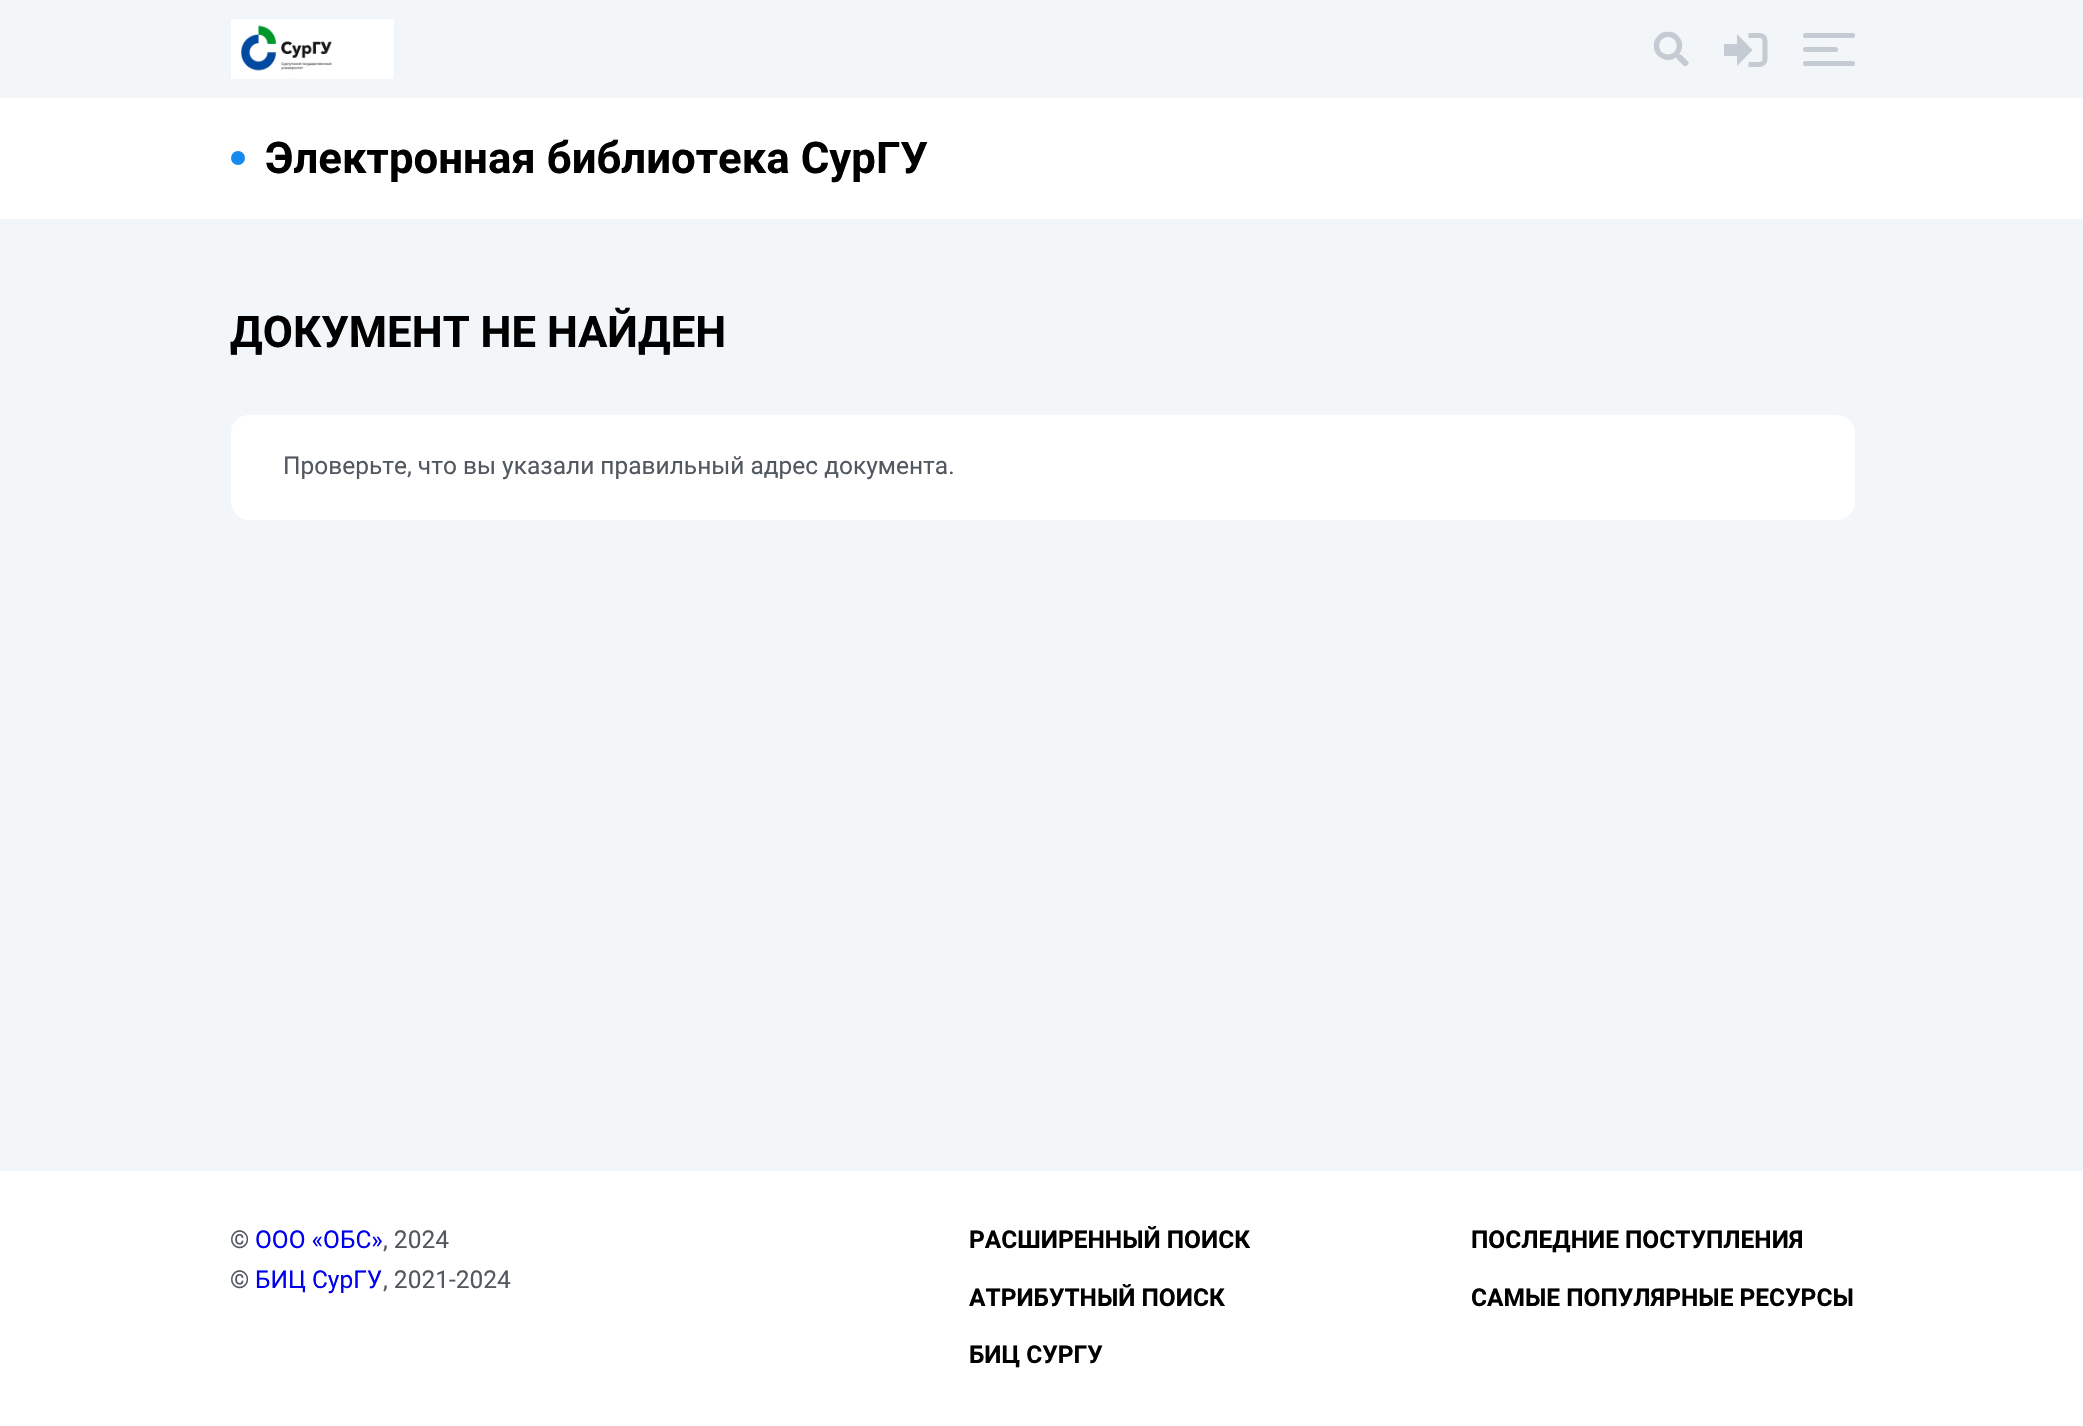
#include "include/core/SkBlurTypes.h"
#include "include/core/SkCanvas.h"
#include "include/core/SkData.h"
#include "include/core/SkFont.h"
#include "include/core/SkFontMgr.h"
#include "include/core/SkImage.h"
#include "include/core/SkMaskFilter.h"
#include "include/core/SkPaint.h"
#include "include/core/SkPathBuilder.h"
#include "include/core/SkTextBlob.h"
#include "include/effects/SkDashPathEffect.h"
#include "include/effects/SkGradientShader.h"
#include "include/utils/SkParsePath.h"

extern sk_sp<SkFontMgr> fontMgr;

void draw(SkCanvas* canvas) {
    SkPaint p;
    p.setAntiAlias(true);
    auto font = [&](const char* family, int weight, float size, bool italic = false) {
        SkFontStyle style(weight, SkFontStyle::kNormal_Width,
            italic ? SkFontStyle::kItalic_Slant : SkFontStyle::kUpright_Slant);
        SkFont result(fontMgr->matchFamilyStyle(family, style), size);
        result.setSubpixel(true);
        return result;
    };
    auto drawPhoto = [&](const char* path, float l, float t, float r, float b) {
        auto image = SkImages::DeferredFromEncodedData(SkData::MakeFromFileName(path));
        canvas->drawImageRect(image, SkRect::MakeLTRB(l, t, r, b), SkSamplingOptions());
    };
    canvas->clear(0xFFF3F6F8);
    p.setColor(0xFFFFFFFF);
    canvas->drawRect(SkRect::MakeLTRB(0, 98, 2083, 219), p);
    drawPhoto("media/1.png", 231, 19, 394, 79);
    drawPhoto("media/2.png", 1654, 31, 1689, 67);
    p.setStyle(SkPaint::kStroke_Style);
    p.setStrokeWidth(5);
    p.setColor(0xFFC4CBD2);
    canvas->drawPath(SkPathBuilder().moveTo(1748.5f, 35.5f).lineTo(1760, 35.5f).cubicTo(1762.5f, 35.5f, 1765, 37.5f, 1765, 40.5f).lineTo(1765, 59.5f).cubicTo(1765, 62, 1762.5f, 64.5f, 1760, 64.5f).lineTo(1748.5f, 64.5f).detach(), p);
    p.setStyle(SkPaint::kFill_Style);
    canvas->drawPath(SkPathBuilder().moveTo(1752.5f, 50).lineTo(1737, 66).lineTo(1737, 34).close().detach(), p);
    canvas->drawRect(SkRect::MakeLTRB(1724, 44, 1737, 56), p);
    canvas->drawRoundRect(SkRect::MakeLTRB(1803, 33, 1855, 38), 2.5f, 2.5f, p);
    canvas->drawRoundRect(SkRect::MakeLTRB(1803, 47, 1838, 52), 2.5f, 2.5f, p);
    canvas->drawRoundRect(SkRect::MakeLTRB(1803, 61, 1855, 66), 2.5f, 2.5f, p);
    p.setColor(0xFF168AED);
    canvas->drawCircle(238, 158, 7, p);
    auto font1 = font("Roboto", 700, 43.75f);
    p.setColor(0xFF000000);
    canvas->drawString("Электронная библиотека СурГУ", 265, 173, font1, p);
    canvas->drawString("ДОКУМЕНТ НЕ НАЙДЕН", 230, 347, font1, p);
    p.setColor(0xFFFFFFFF);
    canvas->drawRoundRect(SkRect::MakeLTRB(231, 415, 1855, 520), 18, 18, p);
    auto font2 = font("Roboto", 400, 24.5f);
    p.setColor(0xFF52585F);
    canvas->drawString("Проверьте, что вы указали правильный адрес документа.", 283, 474, font2, p);
    p.setColor(0xFFFFFFFF);
    canvas->drawRect(SkRect::MakeLTRB(0, 1171, 2083, 1426), p);
    p.setColor(0xFF52585F);
    canvas->drawString("©", 230, 1248, font2, p);
    p.setColor(0xFF0000EE);
    canvas->drawString("ООО «ОБС»", 255, 1248, font2, p);
    p.setColor(0xFF52585F);
    canvas->drawString(", 2024", 383, 1248, font2, p);
    canvas->drawString("©", 230, 1288, font2, p);
    p.setColor(0xFF0000EE);
    canvas->drawString("БИЦ СурГУ", 255, 1288, font2, p);
    p.setColor(0xFF52585F);
    canvas->drawString(", 2021-2024", 383, 1288, font2, p);
    auto font3 = font("Roboto", 700, 24.5f);
    p.setColor(0xFF000000);
    {
        const struct { const char* s; float x, y; } items[] = {
            {"РАСШИРЕННЫЙ ПОИСК", 969, 1248},
            {"АТРИБУТНЫЙ ПОИСК", 969, 1306},
            {"БИЦ СУРГУ", 969, 1363},
            {"ПОСЛЕДНИЕ ПОСТУПЛЕНИЯ", 1471, 1248},
            {"САМЫЕ ПОПУЛЯРНЫЕ РЕСУРСЫ", 1471, 1306},
        };
        for (auto [s, x, y] : items) {
            canvas->drawString(s, x, y, font3, p);
        }
    }
}
